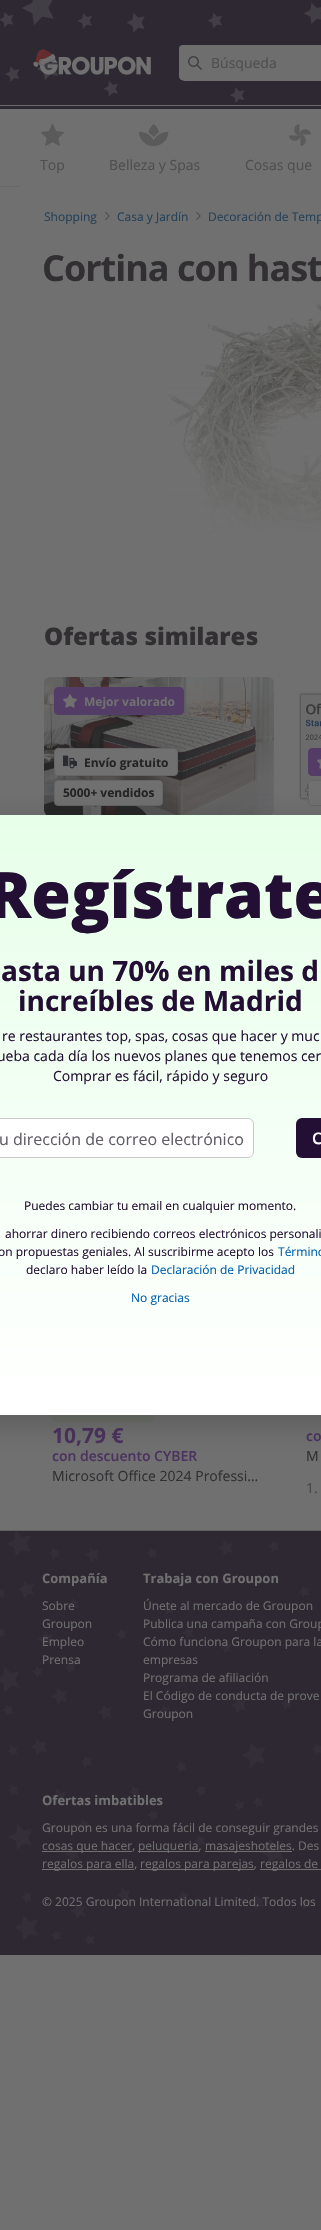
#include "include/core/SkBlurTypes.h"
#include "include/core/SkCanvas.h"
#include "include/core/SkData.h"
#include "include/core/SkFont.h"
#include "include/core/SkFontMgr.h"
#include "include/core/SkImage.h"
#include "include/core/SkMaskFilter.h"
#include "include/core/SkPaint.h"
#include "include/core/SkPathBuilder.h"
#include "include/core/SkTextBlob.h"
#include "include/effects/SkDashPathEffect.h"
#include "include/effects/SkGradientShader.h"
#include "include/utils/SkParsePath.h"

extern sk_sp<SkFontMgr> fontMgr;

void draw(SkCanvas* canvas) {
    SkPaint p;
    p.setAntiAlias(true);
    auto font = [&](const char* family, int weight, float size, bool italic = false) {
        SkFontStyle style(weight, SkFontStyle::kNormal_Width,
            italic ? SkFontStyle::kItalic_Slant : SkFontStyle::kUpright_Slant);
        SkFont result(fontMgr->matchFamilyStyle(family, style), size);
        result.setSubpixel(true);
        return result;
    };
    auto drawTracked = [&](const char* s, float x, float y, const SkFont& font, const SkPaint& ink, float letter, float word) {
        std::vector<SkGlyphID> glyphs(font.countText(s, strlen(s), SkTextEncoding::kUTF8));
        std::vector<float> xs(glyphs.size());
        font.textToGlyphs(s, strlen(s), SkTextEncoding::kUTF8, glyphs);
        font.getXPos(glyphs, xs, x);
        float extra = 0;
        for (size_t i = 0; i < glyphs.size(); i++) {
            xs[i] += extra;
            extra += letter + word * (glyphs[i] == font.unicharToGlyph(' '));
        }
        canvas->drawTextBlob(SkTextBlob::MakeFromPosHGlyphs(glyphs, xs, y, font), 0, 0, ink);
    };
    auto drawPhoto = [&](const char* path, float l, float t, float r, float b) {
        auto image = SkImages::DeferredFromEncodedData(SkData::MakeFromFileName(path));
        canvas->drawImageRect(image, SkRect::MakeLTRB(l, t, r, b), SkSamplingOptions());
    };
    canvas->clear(0xFF707070);
    drawPhoto("media/1.png", 0, 0, 321, 109);
    drawPhoto("media/2.png", 33, 49, 151, 75);
    p.setColor(0xFF6E6E6F);
    canvas->drawRoundRect(SkRect::MakeLTRB(179, 45, 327, 81), 6, 6, p);
    canvas->drawRoundRect(SkRect::MakeLTRB(179, 45, 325, 80), 4, 4, p);
    drawPhoto("media/3.png", 188, 56, 202, 70);
    auto font1 = font("Open Sans", 400, 14);
    p.setColor(0xFF4F4E4F);
    canvas->drawString("Búsqueda", 211, 68, font1, p);
    p.setColor(0xFF686869);
    canvas->drawRect(SkRect::MakeLTRB(0, 105, 321, 106), p);
    canvas->drawRect(SkRect::MakeLTRB(0, 186, 20, 187), p);
    drawPhoto("media/4.png", 41, 124, 64, 146);
    p.setColor(0xFF4F4E4F);
    canvas->drawString("Top", 40, 170, font1, p);
    drawPhoto("media/5.png", 139, 124, 169, 146);
    canvas->drawString("Belleza y Spas", 109, 170, font1, p);
    drawPhoto("media/6.png", 289, 124, 311, 146);
    canvas->drawString("Cosas que", 245, 170, font1, p);
    auto font2 = font("Open Sans", 400, 12);
    p.setColor(0xFF244057);
    canvas->drawString("Shopping", 44, 221, font2, p);
    drawPhoto("media/7.png", 105, 211, 110, 221);
    canvas->drawString("Casa y Jardín", 117, 221, font2, p);
    drawPhoto("media/7.png", 196, 211, 201, 221);
    canvas->drawString("Decoración de Temp", 208, 221, font2, p);
    auto font3 = font("Open Sans", 700, 36);
    p.setColor(0xFF312F32);
    drawTracked("Cortina con hast", 42, 281, font3, p, -1, 0);
    drawPhoto("media/8.png", 167, 300, 321, 539);
    {
        const SkColor colors[] = {0x00707070, 0xFF707070};
        const float stops[] = {0, 0.8f};
        const SkPoint ends[] = {{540, 300}, {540, 600}};
        p.setShader(SkGradientShader::MakeLinear(ends, colors, stops, 2, SkTileMode::kClamp));
        p.setAlpha(255);
    }
    canvas->drawRect(SkRect::MakeLTRB(168, 325, 321, 539), p);
    auto font4 = font("Open Sans", 800, 24);
    p.setShader(nullptr);
    p.setColor(0xFF312F32);
    canvas->drawString("Ofertas similares", 44, 645, font4, p);
    drawPhoto("media/9.png", 44, 677, 274, 815);
    p.setColor(0xFF533C66);
    canvas->drawRoundRect(SkRect::MakeLTRB(54.5f, 687.5f, 183.5f, 714.5f), 3.5f, 3.5f, p);
    p.setStyle(SkPaint::kStroke_Style);
    p.setStrokeWidth(1);
    canvas->drawRoundRect(SkRect::MakeLTRB(54.5f, 687.5f, 183.5f, 714.5f), 3.5f, 3.5f, p);
    drawPhoto("media/10.png", 63, 694, 77, 708);
    auto font5 = font("Open Sans", 700, 12);
    p.setStyle(SkPaint::kFill_Style);
    p.setColor(0xFF707070);
    canvas->drawString("Mejor valorado", 84, 706, font5, p);
    canvas->drawRoundRect(SkRect::MakeLTRB(54.5f, 748.5f, 177.5f, 775.5f), 3.5f, 3.5f, p);
    p.setStyle(SkPaint::kStroke_Style);
    p.setColor(0xFF656566);
    canvas->drawRoundRect(SkRect::MakeLTRB(54.5f, 748.5f, 177.5f, 775.5f), 3.5f, 3.5f, p);
    drawPhoto("media/11.png", 63, 755, 77, 769);
    p.setStyle(SkPaint::kFill_Style);
    p.setColor(0xFF242424);
    canvas->drawString("Envío gratuito", 84, 767, font5, p);
    p.setColor(0xFF707070);
    canvas->drawRoundRect(SkRect::MakeLTRB(54.5f, 780.5f, 162.5f, 805.5f), 3.5f, 3.5f, p);
    p.setStyle(SkPaint::kStroke_Style);
    p.setColor(0xFF656566);
    canvas->drawRoundRect(SkRect::MakeLTRB(54.5f, 780.5f, 162.5f, 805.5f), 3.5f, 3.5f, p);
    p.setStyle(SkPaint::kFill_Style);
    p.setColor(0xFF242424);
    canvas->drawString("5000+ vendidos", 63, 797, font5, p);
    drawPhoto("media/12.png", 298, 677, 321, 815);
    p.setColor(0xFF533C66);
    canvas->drawRoundRect(SkRect::MakeLTRB(308.5f, 748.5f, 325.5f, 775.5f), 3.5f, 3.5f, p);
    p.setStyle(SkPaint::kStroke_Style);
    canvas->drawRoundRect(SkRect::MakeLTRB(308.5f, 748.5f, 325.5f, 775.5f), 3.5f, 3.5f, p);
    drawPhoto("media/13.png", 317, 759, 321, 769);
    p.setStyle(SkPaint::kFill_Style);
    p.setColor(0xFF707070);
    canvas->drawRoundRect(SkRect::MakeLTRB(308.5f, 780.5f, 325.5f, 805.5f), 3.5f, 3.5f, p);
    p.setStyle(SkPaint::kStroke_Style);
    p.setColor(0xFF656566);
    canvas->drawRoundRect(SkRect::MakeLTRB(308.5f, 780.5f, 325.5f, 805.5f), 3.5f, 3.5f, p);
    p.setStyle(SkPaint::kFill_Style);
    p.setColor(0xFF6A6F66);
    canvas->drawRoundRect(SkRect::MakeLTRB(52, 1400, 154, 1422), 4, 4, p);
    auto font6 = font("Open Sans", 700, 21);
    p.setColor(0xFF4B325F);
    canvas->drawString("10,79 €", 52, 1443, font6, p);
    auto font7 = font("Open Sans", 600, 14);
    canvas->drawString("con descuento CYBER", 52, 1461, font7, p);
    p.setColor(0xFF312F32);
    canvas->drawString("Microsoft Office 2024 Professi…", 52, 1481, font1, p);
    p.setColor(0xFF4B325F);
    canvas->drawString("co", 306, 1441, font7, p);
    p.setColor(0xFF312F32);
    canvas->drawString("M", 306, 1461, font1, p);
    p.setColor(0xFF454647);
    canvas->drawString("1.", 306, 1493, font1, p);
    p.setColor(0x33000000);
    p.setMaskFilter(SkMaskFilter::MakeBlur(kNormal_SkBlurStyle, 16));
    canvas->drawRoundRect(SkRect::MakeLTRB(-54, 823, 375, 1423), 6, 6, p);
    p.setMaskFilter(nullptr);
    {
        const SkColor colors[] = {0xFFE7FFE9, 0xFFFFFFFF, 0xFFFFFFFF};
        const float stops[] = {0, 1, 1};
        const SkPoint ends[] = {{161, 815}, {161, 1415}};
        p.setShader(SkGradientShader::MakeLinear(ends, colors, stops, 3, SkTileMode::kClamp));
        p.setAlpha(255);
    }
    canvas->drawRect(SkRect::MakeLTRB(0, 815, 321, 1415), p);
    auto font8 = font("Open Sans", 800, 64);
    p.setShader(nullptr);
    p.setColor(0xFF230F33);
    canvas->drawString("Regístrate", -12, 918, font8, p);
    auto font9 = font("Open Sans", 700, 28);
    canvas->drawString("asta un 70% en miles d", 1, 981, font9, p);
    canvas->drawString("increíbles de Madrid", 18, 1011, font9, p);
    {
        const struct { const char* s; float x, y; } items[] = {
            {"re restaurantes top, spas, cosas que hacer y muc", 2, 1041},
            {"ueba cada día los nuevos planes que tenemos cer", -3, 1061},
            {"Comprar es fácil, rápido y seguro", 53, 1081},
        };
        for (auto [s, x, y] : items) {
            canvas->drawString(s, x, y, font1, p);
        }
    }
    p.setColor(0xFFFFFFFF);
    canvas->drawRoundRect(SkRect::MakeLTRB(-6.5f, 1118.5f, 253.5f, 1157.5f), 5.5f, 5.5f, p);
    p.setStyle(SkPaint::kStroke_Style);
    p.setColor(0xFFCACACC);
    canvas->drawRoundRect(SkRect::MakeLTRB(-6.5f, 1118.5f, 253.5f, 1157.5f), 5.5f, 5.5f, p);
    auto font10 = font("Open Sans", 400, 16);
    p.setStyle(SkPaint::kFill_Style);
    p.setColor(0xFF615C66);
    canvas->drawString("u dirección de correo electrónico", -1, 1145, font10, p);
    p.setColor(0xFF230F33);
    canvas->drawRoundRect(SkRect::MakeLTRB(296, 1118, 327, 1158), 6, 6, p);
    auto font11 = font("Open Sans", 600, 16);
    p.setColor(0xFFFFFFFF);
    canvas->drawString("C", 312, 1144, font11, p);
    p.setColor(0xFF230F33);
    {
        const struct { const char* s; float x, y; } items[] = {
            {"Puedes cambiar tu email en cualquier momento.", 24, 1210},
            {"ahorrar dinero recibiendo correos electrónicos personali", 5, 1238},
            {"on propuestas geniales. Al suscribirme acepto los", -2, 1256},
        };
        for (auto [s, x, y] : items) {
            canvas->drawString(s, x, y, font2, p);
        }
    }
    p.setColor(0xFF005EAB);
    canvas->drawString("Término", 278, 1256, font2, p);
    p.setColor(0xFF230F33);
    canvas->drawString("declaro haber leído la", 26, 1274, font2, p);
    p.setColor(0xFF005EAB);
    canvas->drawString("Declaración de Privacidad", 151, 1274, font2, p);
    canvas->drawString("No gracias", 131, 1302, font2, p);
    drawPhoto("media/14.png", 0, 1531, 321, 1955);
    p.setColor(0xFF606061);
    canvas->drawRect(SkRect::MakeLTRB(0, 1530, 321, 1531), p);
    auto font12 = font("Open Sans", 700, 13);
    p.setColor(0xFF707070);
    canvas->drawString("Compañía", 42, 1583, font12, p);
    {
        const struct { const char* s; float x, y; } items[] = {
            {"Sobre", 42, 1610},
            {"Groupon", 42, 1628},
            {"Empleo", 42, 1646},
            {"Prensa", 42, 1664},
        };
        for (auto [s, x, y] : items) {
            canvas->drawString(s, x, y, font2, p);
        }
    }
    canvas->drawString("Trabaja con Groupon", 143, 1583, font12, p);
    {
        const struct { const char* s; float x, y; } items[] = {
            {"Únete al mercado de Groupon", 143, 1610},
            {"Publica una campaña con Group", 143, 1628},
            {"Cómo funciona Groupon para la", 143, 1646},
            {"empresas", 143, 1664},
            {"Programa de afiliación", 143, 1682},
            {"El Código de conducta de prove", 143, 1700},
            {"Groupon", 143, 1718},
        };
        for (auto [s, x, y] : items) {
            canvas->drawString(s, x, y, font2, p);
        }
    }
    canvas->drawString("Ofertas imbatibles", 42, 1805, font12, p);
    canvas->drawString("Groupon es una forma fácil de conseguir grandes", 42, 1832, font2, p);
    canvas->drawRect(SkRect::MakeLTRB(42, 1851, 132, 1852), p);
    canvas->drawString("cosas que hacer,", 42, 1850, font2, p);
    canvas->drawRect(SkRect::MakeLTRB(138, 1851, 199, 1852), p);
    canvas->drawString("peluqueria,", 138, 1850, font2, p);
    canvas->drawRect(SkRect::MakeLTRB(205, 1851, 292, 1852), p);
    canvas->drawString("masajeshoteles. Des", 205, 1850, font2, p);
    canvas->drawRect(SkRect::MakeLTRB(42, 1869, 134, 1870), p);
    canvas->drawString("regalos para ella,", 42, 1868, font2, p);
    canvas->drawRect(SkRect::MakeLTRB(140, 1869, 254, 1870), p);
    canvas->drawString("regalos para parejas,", 140, 1868, font2, p);
    canvas->drawRect(SkRect::MakeLTRB(260, 1869, 321, 1870), p);
    canvas->drawString("regalos de", 260, 1868, font2, p);
    canvas->drawString("© 2025 Groupon International Limited. Todos los", 42, 1906, font2, p);
}
